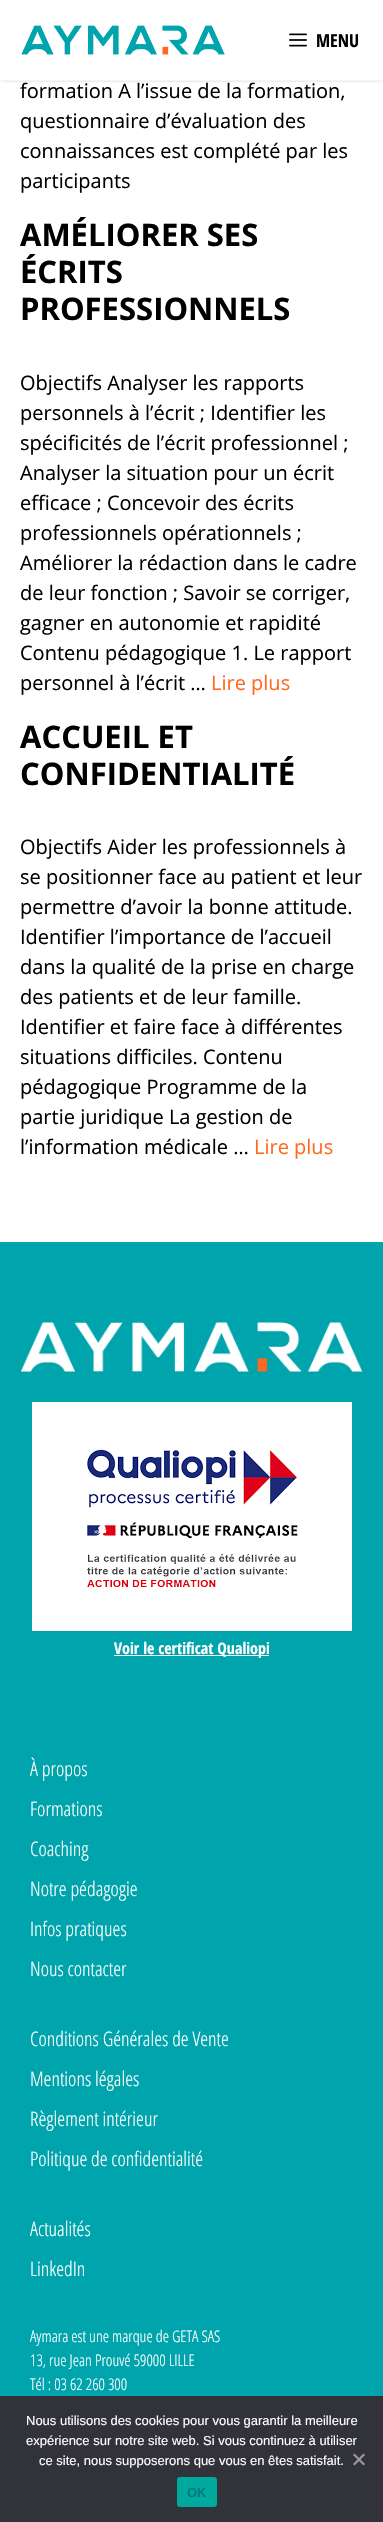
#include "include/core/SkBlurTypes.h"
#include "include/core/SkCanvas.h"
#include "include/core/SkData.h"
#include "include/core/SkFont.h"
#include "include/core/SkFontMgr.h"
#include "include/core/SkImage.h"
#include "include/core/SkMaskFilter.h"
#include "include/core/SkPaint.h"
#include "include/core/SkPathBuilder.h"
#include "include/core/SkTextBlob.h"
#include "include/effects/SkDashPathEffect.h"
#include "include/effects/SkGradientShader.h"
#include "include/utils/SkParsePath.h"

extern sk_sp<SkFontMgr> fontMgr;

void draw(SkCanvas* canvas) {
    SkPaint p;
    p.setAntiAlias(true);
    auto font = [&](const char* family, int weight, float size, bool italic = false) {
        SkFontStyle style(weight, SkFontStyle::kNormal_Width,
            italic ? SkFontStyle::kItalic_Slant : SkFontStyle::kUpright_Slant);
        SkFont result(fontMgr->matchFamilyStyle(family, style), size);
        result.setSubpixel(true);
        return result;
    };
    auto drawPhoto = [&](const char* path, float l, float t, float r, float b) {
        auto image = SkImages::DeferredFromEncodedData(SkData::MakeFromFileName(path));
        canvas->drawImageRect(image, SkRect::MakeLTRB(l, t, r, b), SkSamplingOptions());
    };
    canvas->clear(0xFFFFFFFF);
    p.setColor(0x33000000);
    p.setMaskFilter(SkMaskFilter::MakeBlur(kNormal_SkBlurStyle, 1));
    canvas->drawRect(SkRect::MakeLTRB(2, 4, 381, 81), p);
    p.setMaskFilter(nullptr);
    p.setColor(0xFFFFFFFF);
    canvas->drawRect(SkRect::MakeLTRB(0, 2, 383, 80), p);
    p.setColor(0xFFF5F5F5);
    canvas->drawRect(SkRect::MakeLTRB(0, 80, 383, 81), p);
    drawPhoto("media/1.png", 21, 25, 225, 55);
    drawPhoto("media/2.png", 289, 33, 307, 47);
    auto font1 = font("Open Sans Condensed", 700, 18);
    p.setColor(0xFF000000);
    canvas->drawString("MENU", 316, 47, font1, p);
    auto font2 = font("Open Sans", 400, 20);
    {
        const struct { const char* s; float x, y; } items[] = {
            {"formation A l’issue de la formation,", 20, 98},
            {"questionnaire d’évaluation des", 20, 128},
            {"connaissances est complété par les", 20, 158},
            {"participants", 20, 188},
        };
        for (auto [s, x, y] : items) {
            canvas->drawString(s, x, y, font2, p);
        }
    }
    auto font3 = font("Open Sans", 700, 31);
    {
        const struct { const char* s; float x, y; } items[] = {
            {"AMÉLIORER SES", 20, 246},
            {"ÉCRITS", 20, 283},
            {"PROFESSIONNELS", 20, 320},
        };
        for (auto [s, x, y] : items) {
            canvas->drawString(s, x, y, font3, p);
        }
    }
    {
        const struct { const char* s; float x, y; } items[] = {
            {"Objectifs Analyser les rapports", 20, 390},
            {"personnels à l’écrit ; Identifier les", 20, 420},
            {"spécificités de l’écrit professionnel ;", 20, 450},
            {"Analyser la situation pour un écrit", 20, 480},
            {"efficace ; Concevoir des écrits", 20, 510},
            {"professionnels opérationnels ;", 20, 540},
            {"Améliorer la rédaction dans le cadre", 20, 570},
            {"de leur fonction ; Savoir se corriger,", 20, 600},
            {"gagner en autonomie et rapidité", 20, 630},
            {"Contenu pédagogique 1. Le rapport", 20, 660},
            {"personnel à l’écrit …", 20, 690},
        };
        for (auto [s, x, y] : items) {
            canvas->drawString(s, x, y, font2, p);
        }
    }
    p.setColor(0xFFFF6920);
    canvas->drawString("Lire plus", 211, 690, font2, p);
    p.setColor(0xFF000000);
    canvas->drawString("ACCUEIL ET", 20, 748, font3, p);
    canvas->drawString("CONFIDENTIALITÉ", 20, 785, font3, p);
    {
        const struct { const char* s; float x, y; } items[] = {
            {"Objectifs Aider les professionnels à", 20, 854},
            {"se positionner face au patient et leur", 20, 884},
            {"permettre d’avoir la bonne attitude.", 20, 914},
            {"Identifier l’importance de l’accueil", 20, 944},
            {"dans la qualité de la prise en charge", 20, 974},
            {"des patients et de leur famille.", 20, 1004},
            {"Identifier et faire face à différentes", 20, 1034},
            {"situations difficiles. Contenu", 20, 1064},
            {"pédagogique Programme de la", 20, 1094},
            {"partie juridique La gestion de", 20, 1124},
            {"l’information médicale …", 20, 1154},
        };
        for (auto [s, x, y] : items) {
            canvas->drawString(s, x, y, font2, p);
        }
    }
    p.setColor(0xFFFF6920);
    canvas->drawString("Lire plus", 254, 1154, font2, p);
    p.setColor(0xFF00A4AC);
    canvas->drawRect(SkRect::MakeLTRB(0, 1242, 383, 2396), p);
    drawPhoto("media/3.png", 21, 1322, 363, 1372);
    p.setColor(0xFFFFFFFF);
    canvas->drawRect(SkRect::MakeLTRB(32, 1402, 352, 1631), p);
    drawPhoto("media/4.png", 87, 1449, 298, 1587);
    canvas->drawRect(SkRect::MakeLTRB(114, 1655, 269, 1656), p);
    auto font4 = font("Open Sans Condensed", 700, 16);
    canvas->drawString("Voir le certificat Qualiopi", 114, 1654, font4, p);
    auto font5 = font("Open Sans Condensed", 300, 20);
    {
        const struct { const char* s; float x, y; } items[] = {
            {"À propos", 30, 1776},
            {"Formations", 30, 1816},
            {"Coaching", 30, 1856},
            {"Notre pédagogie", 30, 1896},
            {"Infos pratiques", 30, 1936},
            {"Nous contacter", 30, 1976},
            {"Conditions Générales de Vente", 30, 2046},
            {"Mentions légales", 30, 2086},
            {"Règlement intérieur", 30, 2126},
            {"Politique de confidentialité", 30, 2166},
            {"Actualités", 30, 2236},
            {"LinkedIn", 30, 2276},
        };
        for (auto [s, x, y] : items) {
            canvas->drawString(s, x, y, font5, p);
        }
    }
    auto font6 = font("Open Sans Condensed", 300, 16);
    {
        const struct { const char* s; float x, y; } items[] = {
            {"Aymara est une marque de GETA SAS", 30, 2342},
            {"13, rue Jean Prouvé 59000 LILLE", 30, 2366},
            {"Tél : 03 62 260 300", 30, 2390},
        };
        for (auto [s, x, y] : items) {
            canvas->drawString(s, x, y, font6, p);
        }
    }
    p.setColor(0xFF32323A);
    canvas->drawRect(SkRect::MakeLTRB(0, 2396, 383, 2522), p);
    auto font7 = font("Liberation Sans", 400, 13);
    p.setColor(0xFFFFFFFF);
    {
        const struct { const char* s; float x, y; } items[] = {
            {"Nous utilisons des cookies pour vous garantir la meilleure", 26, 2425},
            {"expérience sur notre site web. Si vous continuez à utiliser", 26, 2445},
            {"ce site, nous supposerons que vous en êtes satisfait.", 39, 2465},
        };
        for (auto [s, x, y] : items) {
            canvas->drawString(s, x, y, font7, p);
        }
    }
    p.setColor(0xFF99999D);
    canvas->drawPath(SkPathBuilder().moveTo(363.5f, 2453.5f).lineTo(365, 2455).lineTo(354.5f, 2465.5f).lineTo(353, 2464).close().detach(), p);
    canvas->drawPath(SkPathBuilder().moveTo(353, 2455).lineTo(354.5f, 2453.5f).lineTo(365, 2464).lineTo(363.5f, 2465.5f).close().detach(), p);
    p.setColor(0xFF00A99D);
    canvas->drawRoundRect(SkRect::MakeLTRB(177, 2477, 217, 2507), 3, 3, p);
    auto font8 = font("Liberation Sans", 700, 13);
    p.setColor(0xFF007C82);
    canvas->drawString("OK", 187, 2497, font8, p);
}
